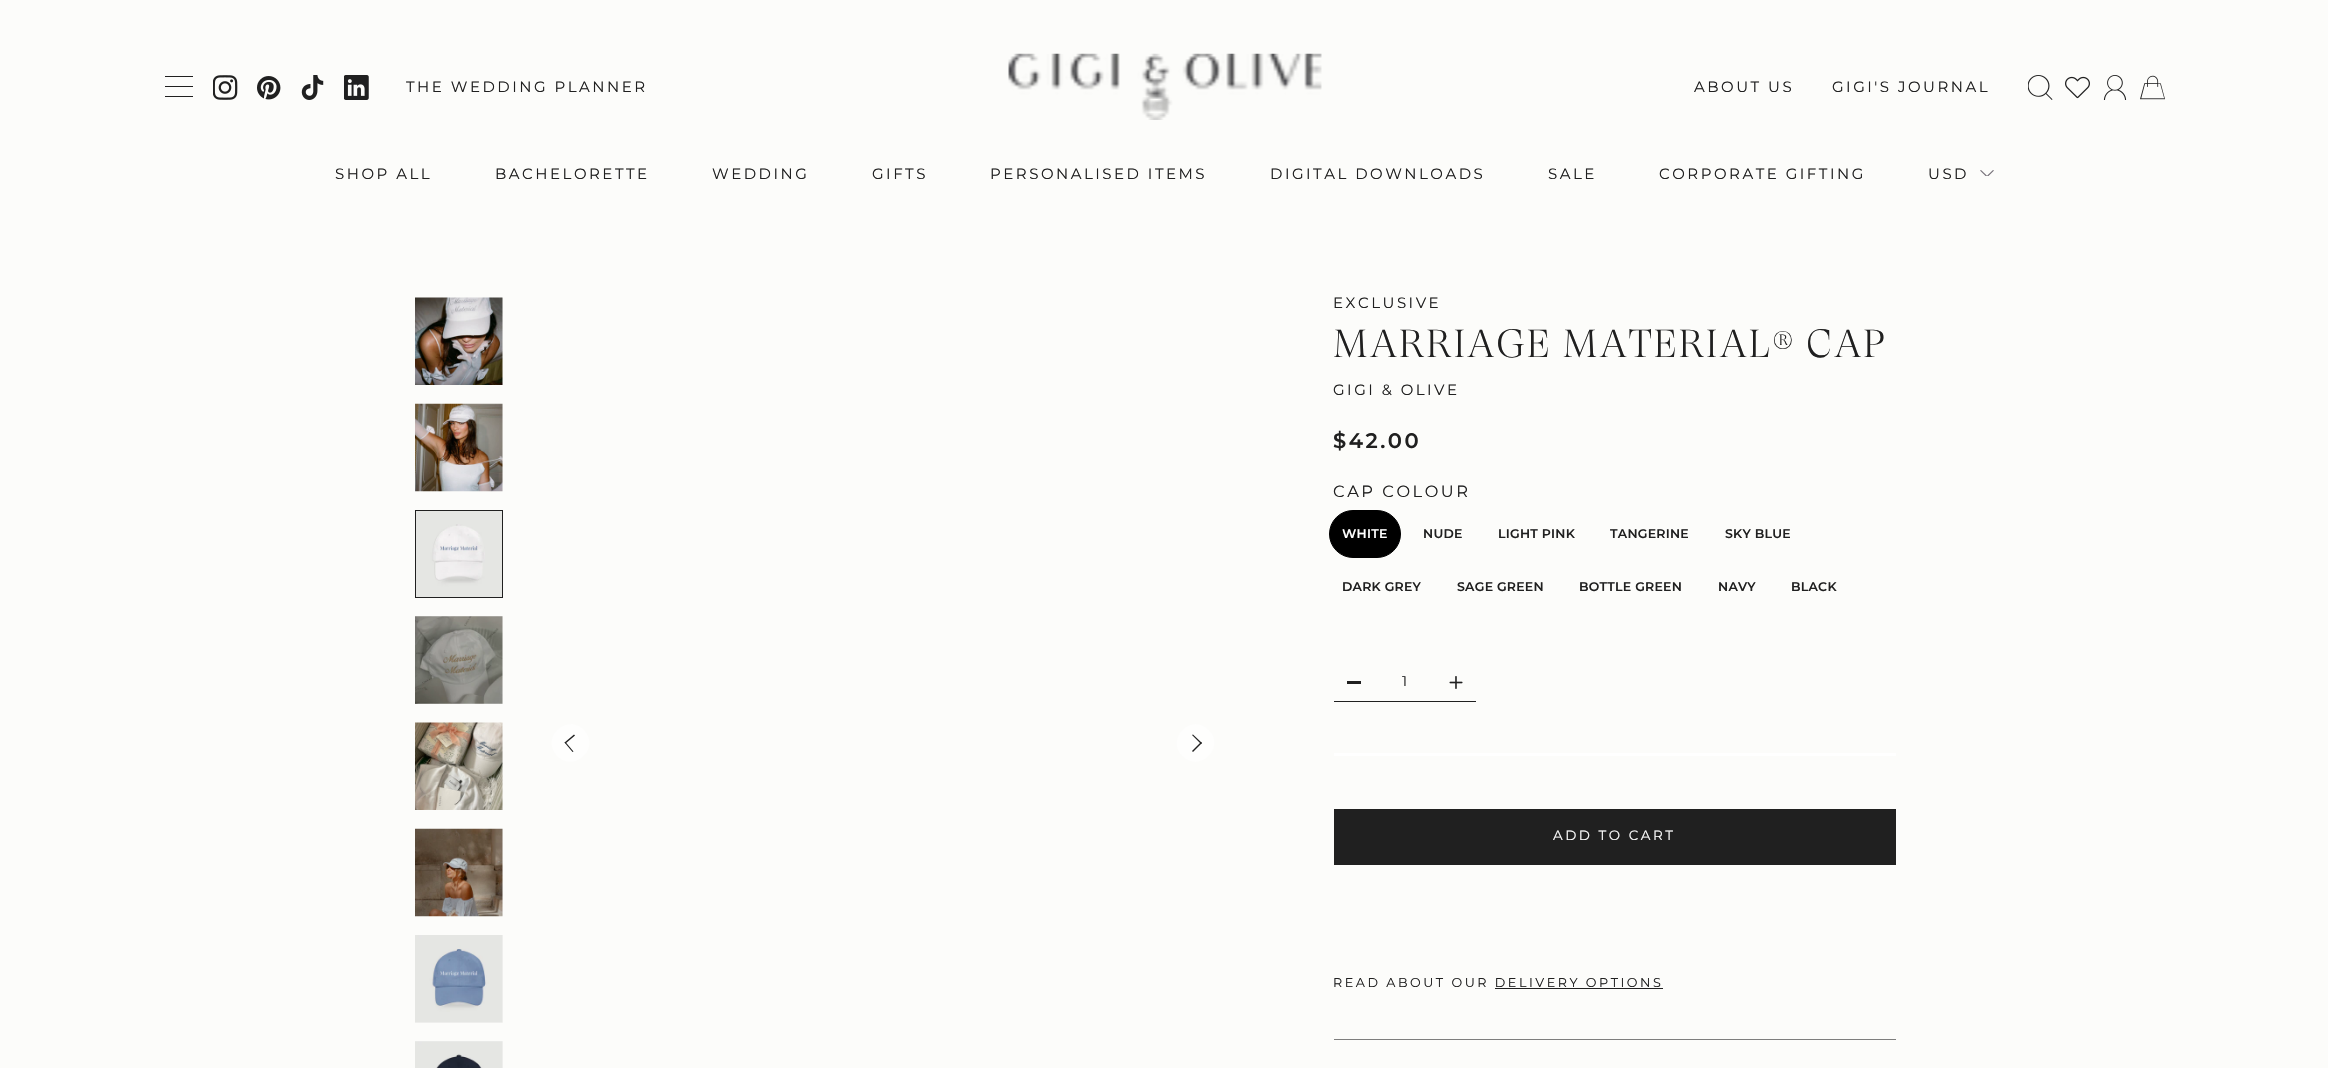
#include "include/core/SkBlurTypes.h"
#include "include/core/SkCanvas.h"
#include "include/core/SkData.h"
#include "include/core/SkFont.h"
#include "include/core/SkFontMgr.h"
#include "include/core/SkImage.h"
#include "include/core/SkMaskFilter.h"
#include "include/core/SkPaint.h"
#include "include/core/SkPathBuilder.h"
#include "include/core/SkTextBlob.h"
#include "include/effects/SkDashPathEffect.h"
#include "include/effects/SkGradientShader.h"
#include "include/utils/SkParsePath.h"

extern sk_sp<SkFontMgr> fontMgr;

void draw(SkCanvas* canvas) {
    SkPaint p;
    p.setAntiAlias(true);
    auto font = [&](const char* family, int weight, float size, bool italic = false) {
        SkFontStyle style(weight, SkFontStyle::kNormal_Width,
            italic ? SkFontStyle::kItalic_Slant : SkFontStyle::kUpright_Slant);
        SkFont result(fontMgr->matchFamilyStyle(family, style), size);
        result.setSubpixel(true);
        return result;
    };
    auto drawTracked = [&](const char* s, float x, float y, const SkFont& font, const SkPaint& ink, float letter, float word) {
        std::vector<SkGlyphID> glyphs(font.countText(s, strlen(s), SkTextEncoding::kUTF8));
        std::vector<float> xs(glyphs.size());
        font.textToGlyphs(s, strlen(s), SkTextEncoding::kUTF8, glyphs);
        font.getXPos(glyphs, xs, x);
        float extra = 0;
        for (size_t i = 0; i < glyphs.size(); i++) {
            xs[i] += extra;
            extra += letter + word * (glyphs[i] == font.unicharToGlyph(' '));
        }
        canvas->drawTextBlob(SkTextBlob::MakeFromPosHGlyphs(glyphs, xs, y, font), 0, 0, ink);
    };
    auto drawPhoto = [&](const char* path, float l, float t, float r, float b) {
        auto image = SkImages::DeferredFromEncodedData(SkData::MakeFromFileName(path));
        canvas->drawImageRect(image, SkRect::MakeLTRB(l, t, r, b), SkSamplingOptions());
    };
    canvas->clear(0xFFFCFCFA);
    {
        const struct { float l, t, r, b; SkColor color; } items[] = {
            {165, 86, 193, 87, 0xFF202020},
            {165, 76, 193, 77, 0xFF202020},
            {165, 96, 193, 97, 0xFF202020},
        };
        for (auto [l, t, r, b, color] : items) {
            p.setColor(color);
            canvas->drawRect(SkRect::MakeLTRB(l, t, r, b), p);
        }
    }
    drawPhoto("media/1.png", 213, 75, 238, 100);
    drawPhoto("media/2.png", 257, 76, 281, 100);
    drawPhoto("media/3.png", 301, 75, 324, 100);
    drawPhoto("media/4.png", 344, 75, 369, 100);
    auto font1 = font("Montserrat", 400, 15);
    drawTracked("THE WEDDING PLANNER", 406, 92, font1, p, 2.5f, 0);
    drawPhoto("media/5.png", 1008, 53, 1322, 120);
    drawTracked("ABOUT US", 1694, 92, font1, p, 2.5f, 0);
    drawTracked("GIGI'S JOURNAL", 1832, 92, font1, p, 2.5f, 0);
    drawPhoto("media/6.png", 2028, 75, 2053, 100);
    drawPhoto("media/7.png", 2065, 76, 2090, 99);
    drawPhoto("media/8.png", 2103, 75, 2127, 100);
    drawPhoto("media/9.png", 2140, 75, 2165, 100);
    {
        const struct { const char* s; float x, y; } items[] = {
            {"SHOP ALL", 335, 179},
            {"BACHELORETTE", 495, 179},
            {"WEDDING", 712, 179},
            {"GIFTS", 872, 179},
            {"PERSONALISED ITEMS", 990, 179},
            {"DIGITAL DOWNLOADS", 1270, 179},
            {"SALE", 1548, 179},
            {"CORPORATE GIFTING", 1659, 179},
        };
        for (auto [s, x, y] : items) {
            drawTracked(s, x, y, font1, p, 2.5f, 0);
        }
    }
    drawPhoto("media/10.png", 1980, 170, 1994, 176);
    drawTracked("USD", 1928, 179, font1, p, 2.5f, 0);
    p.setColor(0xFFF7F7F5);
    canvas->drawRect(SkRect::MakeLTRB(502, 298, 503, 385), p);
    drawPhoto("media/11.png", 415, 297, 503, 385);
    canvas->drawRect(SkRect::MakeLTRB(502, 404, 503, 491), p);
    drawPhoto("media/12.png", 415, 403, 503, 492);
    drawPhoto("media/13.png", 416, 511, 502, 597);
    p.setStyle(SkPaint::kStroke_Style);
    p.setStrokeWidth(1);
    p.setColor(0xFF202020);
    canvas->drawRect(SkRect::MakeLTRB(415.5f, 510.5f, 502.5f, 597.5f), p);
    p.setStyle(SkPaint::kFill_Style);
    p.setColor(0xFFF7F7F5);
    canvas->drawRect(SkRect::MakeLTRB(415, 616, 503, 704), p);
    drawPhoto("media/14.png", 415, 616, 503, 704);
    canvas->drawRect(SkRect::MakeLTRB(502, 723, 503, 810), p);
    drawPhoto("media/15.png", 415, 722, 503, 810);
    canvas->drawRect(SkRect::MakeLTRB(502, 829, 503, 916), p);
    drawPhoto("media/16.png", 415, 828, 503, 917);
    canvas->drawRect(SkRect::MakeLTRB(415, 935, 503, 1023), p);
    drawPhoto("media/17.png", 415, 935, 503, 1023);
    canvas->drawRect(SkRect::MakeLTRB(415, 1041, 503, 1068), p);
    drawPhoto("media/18.png", 415, 1041, 503, 1068);
    p.setColor(0xFFFEFEFD);
    canvas->drawPath(SkPathBuilder().moveTo(556, 755).cubicTo(540, 736, 569, 712, 585, 731).cubicTo(601, 750, 572, 774, 556, 755).close().detach(), p);
    p.setColor(0xFF202020);
    canvas->drawPath(SkPathBuilder().moveTo(572.5f, 752).lineTo(564.5f, 742.5f).lineTo(565.5f, 742).lineTo(573.5f, 751.5f).close().detach(), p);
    canvas->drawPath(SkPathBuilder().moveTo(565.5f, 743.5f).lineTo(564.5f, 742.5f).lineTo(574, 734.5f).lineTo(575, 735.5f).close().detach(), p);
    p.setColor(0xFFFEFEFD);
    canvas->drawPath(SkPathBuilder().moveTo(1209, 730).cubicTo(1226, 747, 1200, 774, 1182, 756).cubicTo(1165, 739, 1191, 712, 1209, 730).close().detach(), p);
    p.setColor(0xFF202020);
    canvas->drawPath(SkPathBuilder().moveTo(1193, 734.5f).lineTo(1202, 743).lineTo(1201, 744).lineTo(1192, 735).close().detach(), p);
    canvas->drawPath(SkPathBuilder().moveTo(1201, 742).lineTo(1202, 743).lineTo(1193, 752).lineTo(1192, 751).close().detach(), p);
    drawTracked("EXCLUSIVE", 1333, 308, font1, p, 2.5f, 0);
    auto font2 = font("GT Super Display", 300, 39);
    drawTracked("MARRIAGE MATERIAL® CAP", 1333, 357, font2, p, 1.95f, 0);
    drawTracked("GIGI & OLIVE", 1333, 395, font1, p, 2.5f, 0);
    auto font3 = font("Montserrat", 600, 21);
    drawTracked("$42.00", 1333, 448, font3, p, 2.5f, 0);
    auto font4 = font("Montserrat", 400, 16.25f);
    drawTracked("CAP COLOUR", 1333, 497, font4, p, 2.5f, 0);
    p.setColor(0xFF000000);
    canvas->drawRoundRect(SkRect::MakeLTRB(1329.5f, 510.5f, 1400.5f, 557.5f), 23.5f, 23.5f, p);
    p.setStyle(SkPaint::kStroke_Style);
    canvas->drawRoundRect(SkRect::MakeLTRB(1329.5f, 510.5f, 1400.5f, 557.5f), 23.5f, 23.5f, p);
    auto font5 = font("Montserrat", 600, 12.5f);
    p.setStyle(SkPaint::kFill_Style);
    p.setColor(0xFFFFFFFF);
    drawTracked("WHITE", 1342, 538, font5, p, 0.25f, 0);
    p.setStyle(SkPaint::kStroke_Style);
    p.setColor(0xFF000000);
    canvas->drawCircle(1365, 534, 23.5f, p);
    p.setStyle(SkPaint::kFill_Style);
    p.setColor(0xFF202020);
    {
        const struct { const char* s; float x, y; } items[] = {
            {"NUDE", 1423, 538},
            {"LIGHT PINK", 1498, 538},
            {"TANGERINE", 1610, 538},
            {"SKY BLUE", 1725, 538},
            {"DARK GREY", 1342, 591},
            {"SAGE GREEN", 1457, 591},
            {"BOTTLE GREEN", 1579, 591},
            {"NAVY", 1718, 591},
            {"BLACK", 1791, 591},
        };
        for (auto [s, x, y] : items) {
            drawTracked(s, x, y, font5, p, 0.25f, 0);
        }
    }
    canvas->drawRect(SkRect::MakeLTRB(1347, 681, 1361, 684), p);
    canvas->drawRect(SkRect::MakeLTRB(1334, 701, 1476, 702), p);
    auto font6 = font("Montserrat", 400, 14);
    canvas->drawString("1", 1402, 686, font6, p);
    drawPhoto("media/19.png", 1449, 676, 1463, 689);
    p.setColor(0xFFFFFFFF);
    canvas->drawRect(SkRect::MakeLTRB(1334, 753, 1896, 756), p);
    p.setColor(0xFF202020);
    canvas->drawRect(SkRect::MakeLTRB(1334, 809, 1896, 865), p);
    auto font7 = font("Montserrat", 400, 13.5f);
    p.setColor(0xFFFFFFFF);
    drawTracked("ADD TO CART", 1553, 840, font7, p, 2.5f, 0);
    auto font8 = font("Montserrat", 400, 12.75f);
    p.setColor(0xFF202020);
    drawTracked("READ ABOUT OUR DELIVERY OPTIONS", 1333, 987, font8, p, 2.5f, 0);
    canvas->drawRect(SkRect::MakeLTRB(1495, 988, 1663, 989), p);
    p.setColor(0xFF7E7E7D);
    canvas->drawRect(SkRect::MakeLTRB(1334, 1039, 1896, 1040), p);
}
